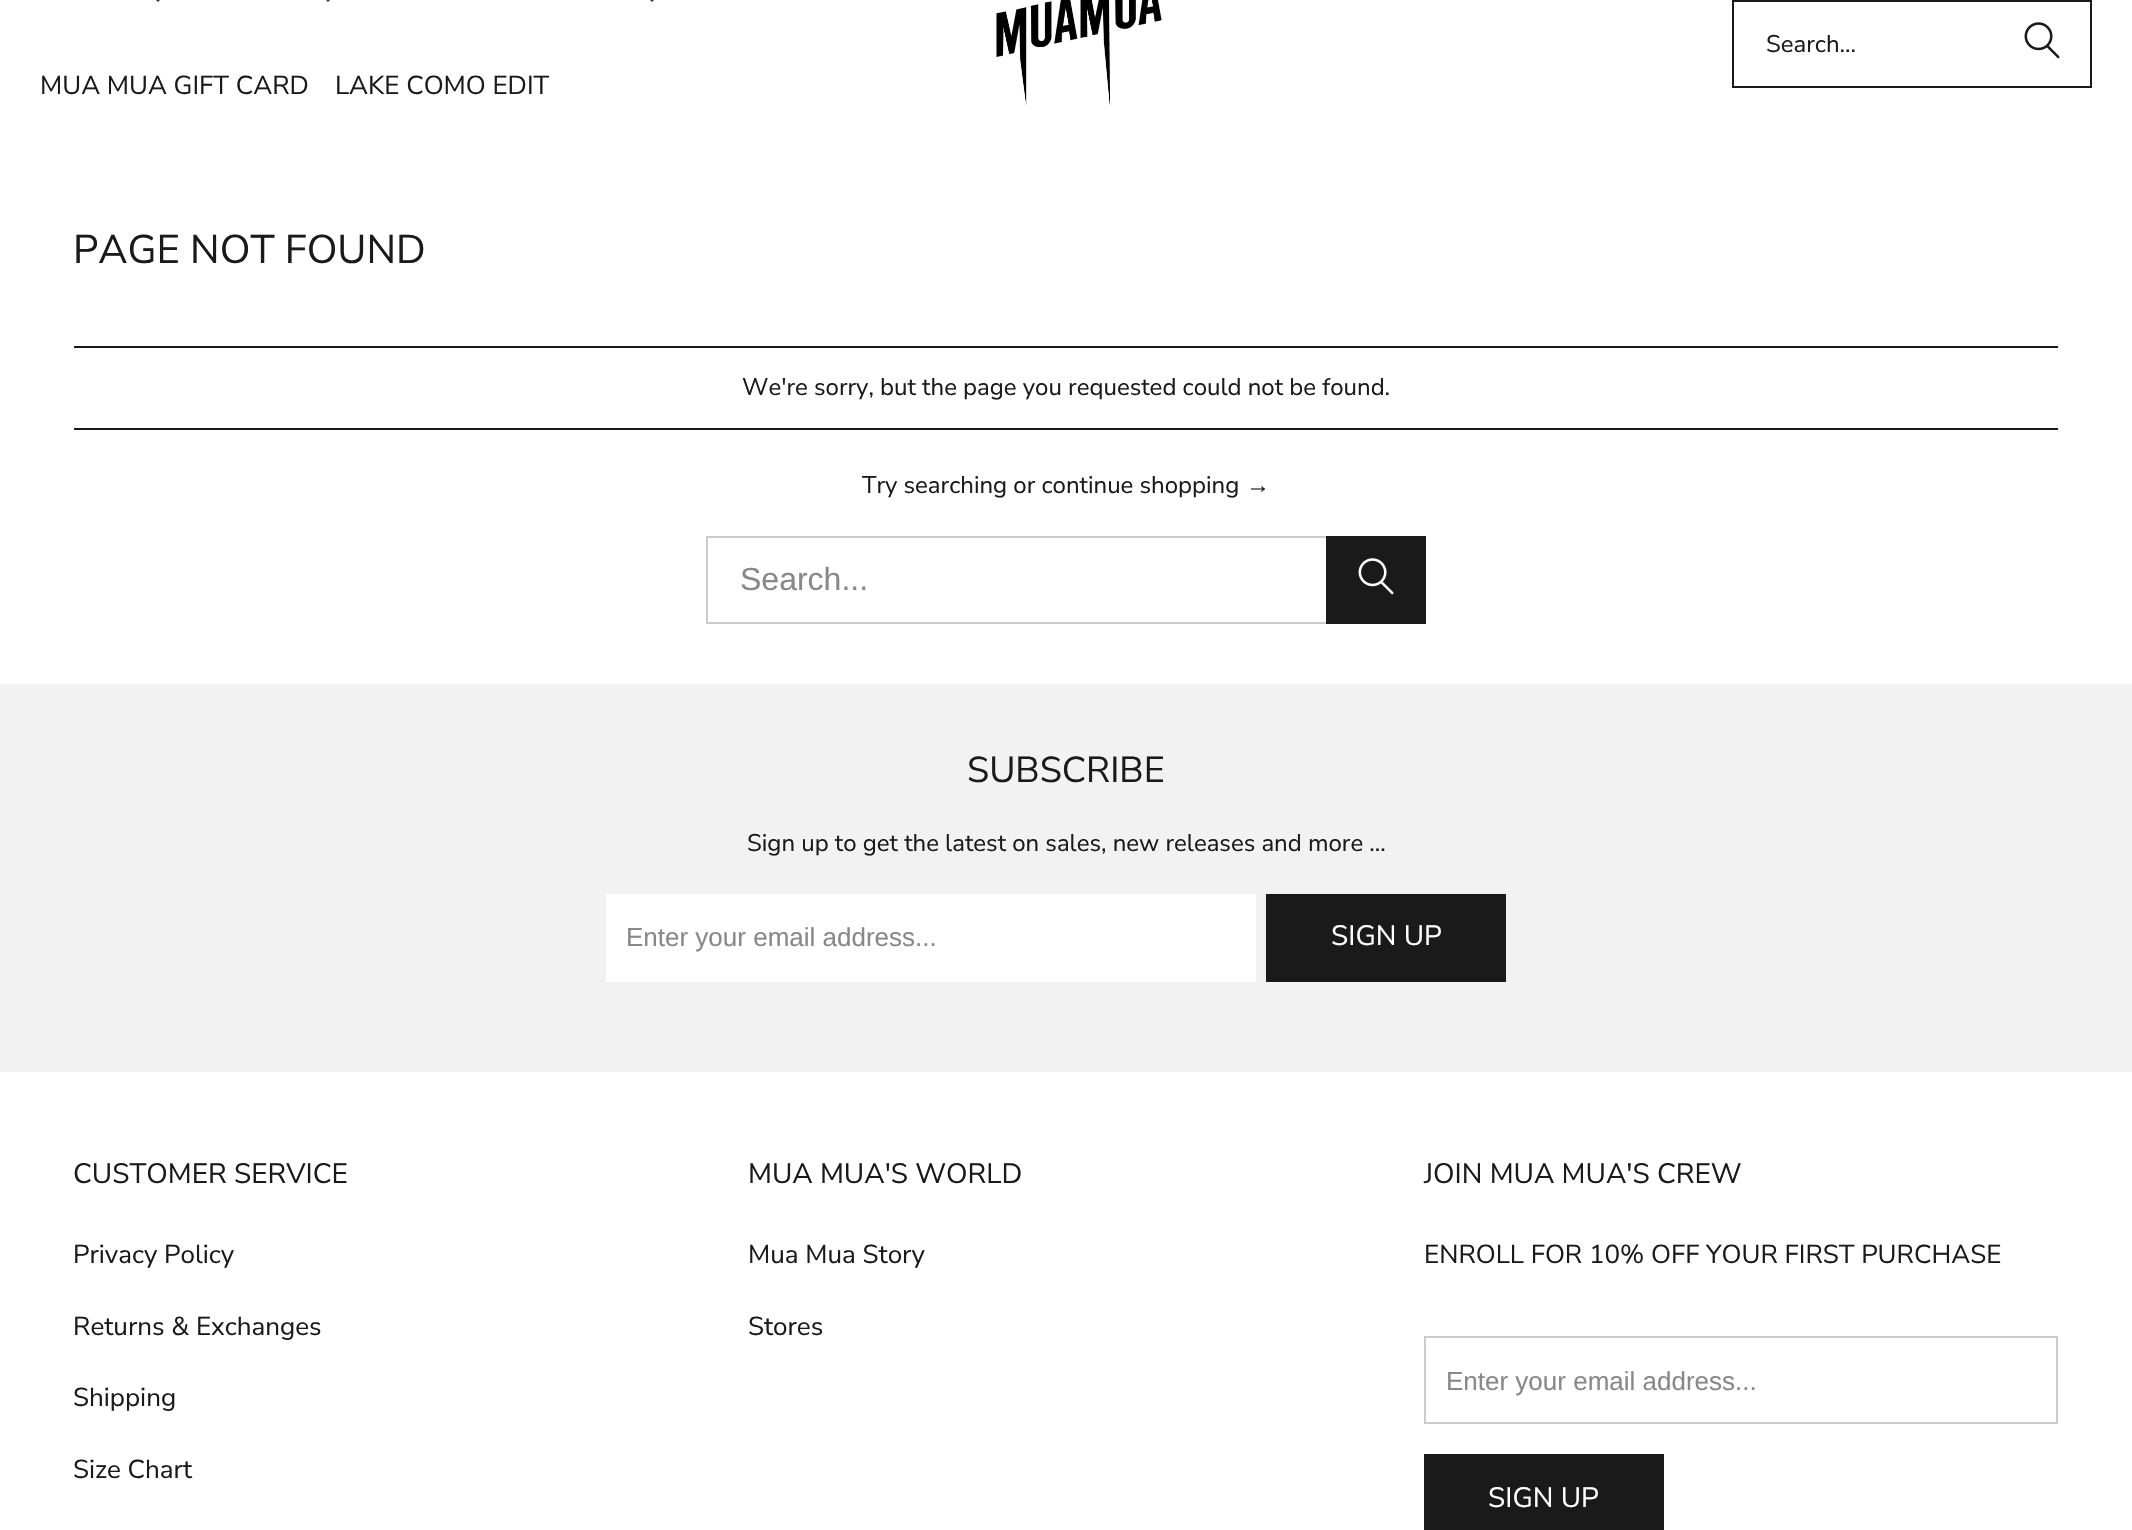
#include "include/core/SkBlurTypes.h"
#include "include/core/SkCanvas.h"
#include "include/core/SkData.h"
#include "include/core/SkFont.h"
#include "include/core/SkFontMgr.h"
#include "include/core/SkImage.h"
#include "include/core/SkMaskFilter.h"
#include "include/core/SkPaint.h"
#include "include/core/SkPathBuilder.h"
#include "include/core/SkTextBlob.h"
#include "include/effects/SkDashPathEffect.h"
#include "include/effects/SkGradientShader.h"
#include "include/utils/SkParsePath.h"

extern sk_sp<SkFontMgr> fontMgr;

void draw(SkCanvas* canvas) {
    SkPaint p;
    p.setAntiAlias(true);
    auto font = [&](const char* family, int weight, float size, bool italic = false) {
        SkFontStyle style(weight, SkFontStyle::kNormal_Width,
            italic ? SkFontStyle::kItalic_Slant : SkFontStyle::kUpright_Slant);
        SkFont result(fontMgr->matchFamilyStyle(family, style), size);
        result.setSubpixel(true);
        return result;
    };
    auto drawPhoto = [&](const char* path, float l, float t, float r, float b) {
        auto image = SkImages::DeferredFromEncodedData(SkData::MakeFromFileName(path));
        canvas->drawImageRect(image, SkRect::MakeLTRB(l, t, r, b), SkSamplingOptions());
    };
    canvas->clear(0xFFFFFFFF);
    drawPhoto("media/1.png", 996, 0, 1162, 106);
    p.setStyle(SkPaint::kStroke_Style);
    p.setStrokeWidth(2);
    p.setColor(0xFF1A1A1A);
    canvas->drawRect(SkRect::MakeLTRB(1733, 1, 2091, 87), p);
    auto font1 = font("Nunito Sans", 400, 24);
    p.setStyle(SkPaint::kFill_Style);
    canvas->drawString("Search...", 1766, 52, font1, p);
    drawPhoto("media/2.png", 2024, 22, 2060, 59);
    canvas->drawPath(SkPathBuilder().moveTo(158, 2).lineTo(146, -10.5f).lineTo(146.5f, -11).lineTo(158, 0.5f).lineTo(169.5f, -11).lineTo(170, -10.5f).close().detach(), p);
    canvas->drawPath(SkPathBuilder().moveTo(328, 2).lineTo(316, -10.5f).lineTo(316.5f, -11).lineTo(328, 0.5f).lineTo(339.5f, -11).lineTo(340, -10.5f).close().detach(), p);
    canvas->drawPath(SkPathBuilder().moveTo(652, 2).lineTo(640, -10.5f).lineTo(640.5f, -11).lineTo(652, 0.5f).lineTo(663.5f, -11).lineTo(664, -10.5f).close().detach(), p);
    auto font2 = font("Nunito Sans", 400, 26);
    canvas->drawString("MUA MUA GIFT CARD", 40, 94, font2, p);
    canvas->drawString("LAKE COMO EDIT", 335, 94, font2, p);
    auto font3 = font("Nunito Sans", 400, 40);
    canvas->drawString("PAGE NOT FOUND", 73, 263, font3, p);
    canvas->drawRect(SkRect::MakeLTRB(74, 346, 2058, 348), p);
    canvas->drawRect(SkRect::MakeLTRB(74, 428, 2058, 430), p);
    canvas->drawString("We're sorry, but the page you requested could not be found.", 742, 395, font1, p);
    canvas->drawString("Try searching or continue shopping", 862, 493, font1, p);
    auto font4 = font("Liberation Sans", 400, 24);
    canvas->drawString("→", 1246, 493, font4, p);
    p.setStyle(SkPaint::kStroke_Style);
    p.setColor(0xFFCCCCCC);
    canvas->drawRect(SkRect::MakeLTRB(707, 537, 1425, 623), p);
    auto font5 = font("Liberation Sans", 400, 32);
    p.setStyle(SkPaint::kFill_Style);
    p.setColor(0xFF888888);
    canvas->drawString("Search...", 740, 590, font5, p);
    p.setColor(0xFF1A1A1A);
    canvas->drawRect(SkRect::MakeLTRB(1326, 536, 1426, 624), p);
    drawPhoto("media/3.png", 1358, 558, 1394, 595);
    p.setColor(0xFFF2F2F2);
    canvas->drawRect(SkRect::MakeLTRB(0, 684, 2132, 1072), p);
    auto font6 = font("Nunito Sans", 400, 36);
    p.setColor(0xFF1A1A1A);
    canvas->drawString("SUBSCRIBE", 967, 782, font6, p);
    canvas->drawString("Sign up to get the latest on sales, new releases and more …", 747, 851, font1, p);
    p.setColor(0xFFFFFFFF);
    canvas->drawRect(SkRect::MakeLTRB(606, 894, 1256, 982), p);
    auto font7 = font("Liberation Sans", 400, 26);
    p.setColor(0xFF888888);
    canvas->drawString("Enter your email address...", 626, 946, font7, p);
    p.setColor(0xFF1A1A1A);
    canvas->drawRect(SkRect::MakeLTRB(1266, 894, 1506, 982), p);
    auto font8 = font("Nunito Sans", 400, 28);
    p.setColor(0xFFFFFFFF);
    canvas->drawString("SIGN UP", 1331, 945, font8, p);
    p.setColor(0xFF1A1A1A);
    canvas->drawString("CUSTOMER SERVICE", 73, 1183, font8, p);
    {
        const struct { const char* s; float x, y; } items[] = {
            {"Privacy Policy", 73, 1263},
            {"Returns & Exchanges", 73, 1335},
            {"Shipping", 73, 1406},
            {"Size Chart", 73, 1478},
        };
        for (auto [s, x, y] : items) {
            canvas->drawString(s, x, y, font2, p);
        }
    }
    canvas->drawString("MUA MUA'S WORLD", 748, 1183, font8, p);
    canvas->drawString("Mua Mua Story", 748, 1263, font2, p);
    canvas->drawString("Stores", 748, 1335, font2, p);
    canvas->drawString("JOIN MUA MUA'S CREW", 1424, 1183, font8, p);
    canvas->drawString("ENROLL FOR 10% OFF YOUR FIRST PURCHASE", 1424, 1263, font2, p);
    p.setStyle(SkPaint::kStroke_Style);
    p.setColor(0xFFCCCCCC);
    canvas->drawRect(SkRect::MakeLTRB(1425, 1337, 2057, 1423), p);
    p.setStyle(SkPaint::kFill_Style);
    p.setColor(0xFF888888);
    canvas->drawString("Enter your email address...", 1446, 1390, font7, p);
    p.setColor(0xFF1A1A1A);
    canvas->drawRect(SkRect::MakeLTRB(1424, 1454, 1664, 1530), p);
    p.setColor(0xFFFFFFFF);
    canvas->drawString("SIGN UP", 1488, 1507, font8, p);
}
